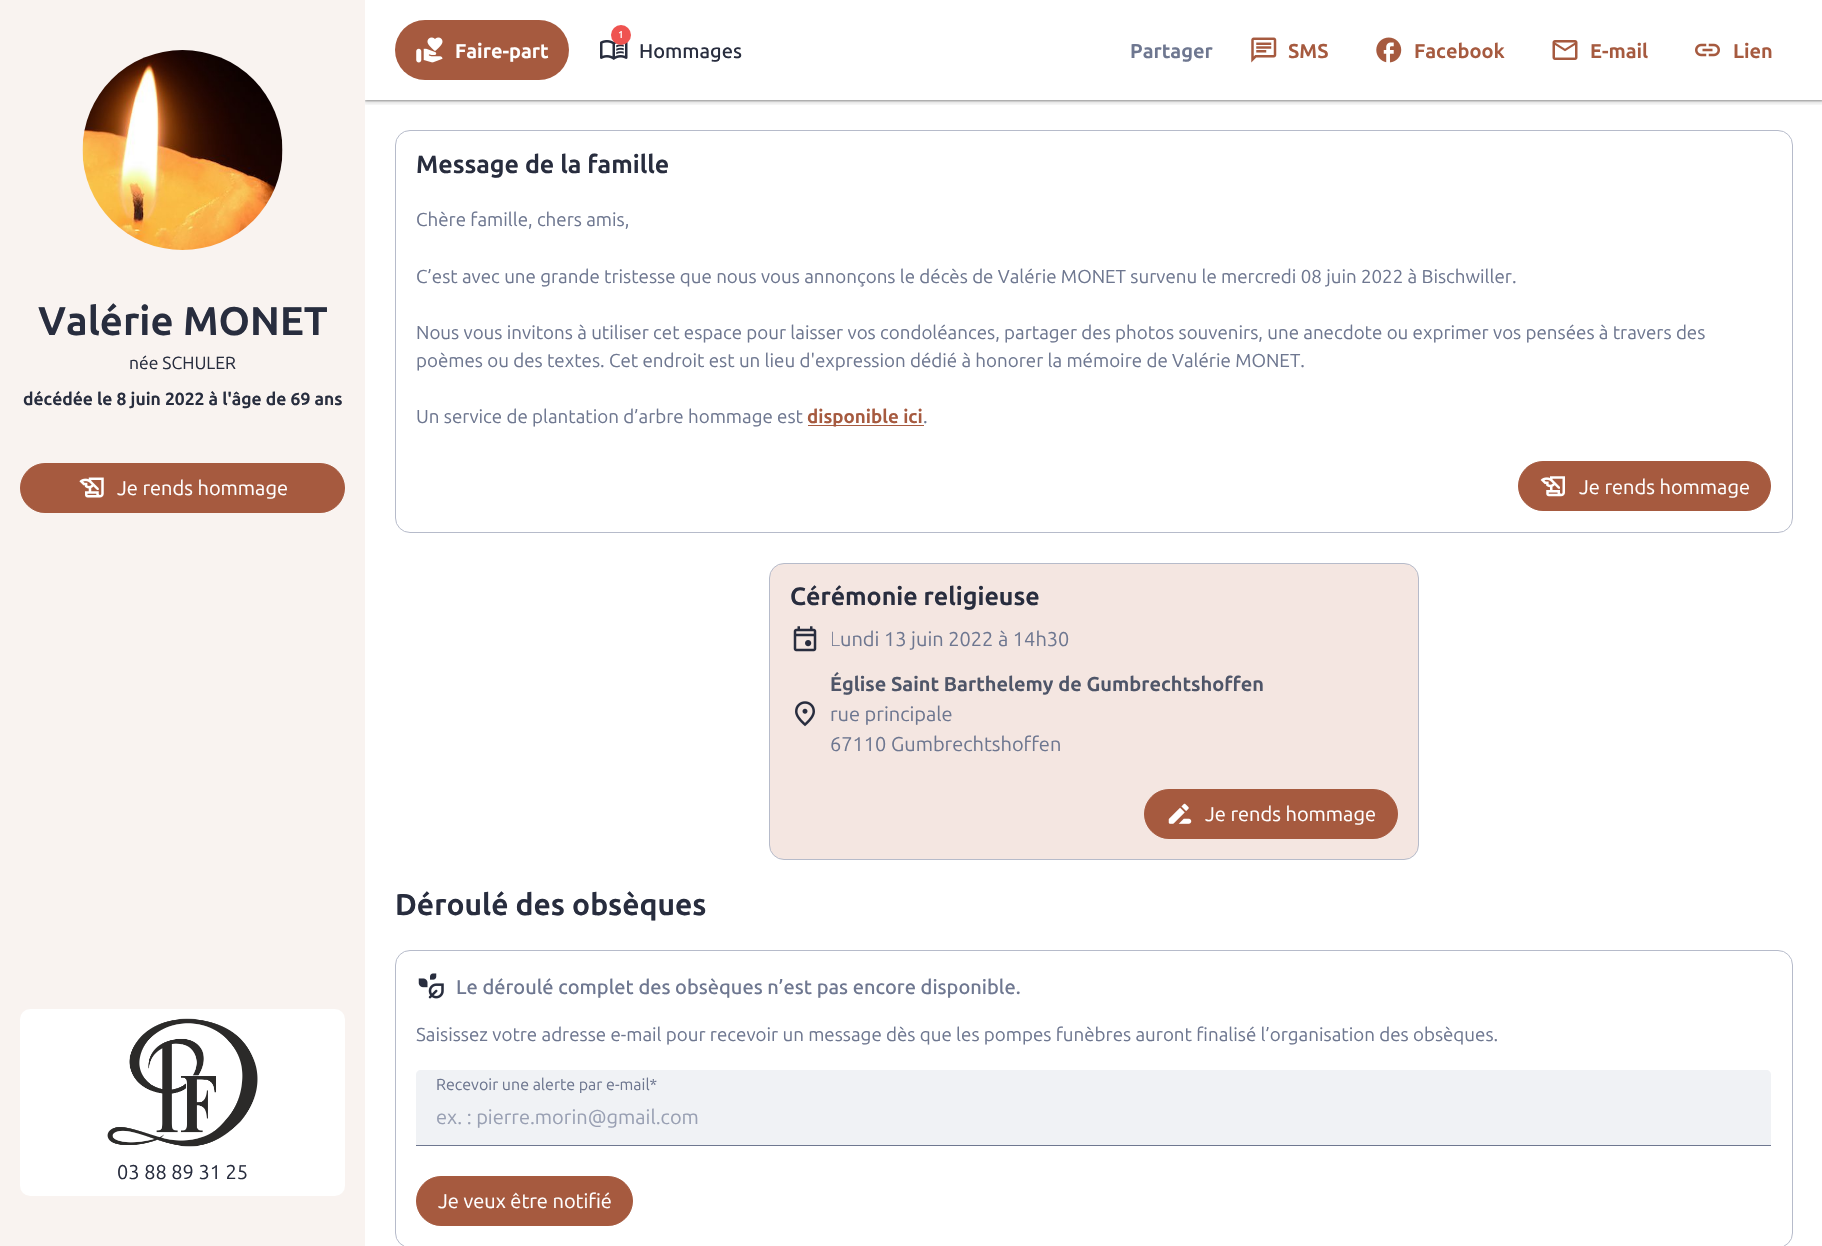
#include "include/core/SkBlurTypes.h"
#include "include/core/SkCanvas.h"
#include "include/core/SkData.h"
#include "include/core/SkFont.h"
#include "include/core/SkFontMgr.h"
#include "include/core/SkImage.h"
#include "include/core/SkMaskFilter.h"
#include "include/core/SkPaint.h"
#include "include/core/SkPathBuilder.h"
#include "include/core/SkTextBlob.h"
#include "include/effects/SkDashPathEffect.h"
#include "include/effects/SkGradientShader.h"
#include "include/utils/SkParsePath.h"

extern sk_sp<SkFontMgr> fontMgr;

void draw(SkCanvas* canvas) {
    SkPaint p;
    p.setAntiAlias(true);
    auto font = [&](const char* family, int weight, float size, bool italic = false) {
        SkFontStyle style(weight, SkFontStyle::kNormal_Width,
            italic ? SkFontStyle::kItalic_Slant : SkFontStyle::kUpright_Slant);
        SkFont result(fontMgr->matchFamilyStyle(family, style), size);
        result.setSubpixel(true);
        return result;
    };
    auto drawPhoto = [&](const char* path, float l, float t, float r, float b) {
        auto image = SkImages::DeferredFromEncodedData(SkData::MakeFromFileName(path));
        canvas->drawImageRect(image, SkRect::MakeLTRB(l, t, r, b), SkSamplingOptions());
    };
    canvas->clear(0xFFFFFFFF);
    canvas->save();
    canvas->clipRect(SkRect::MakeLTRB(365, 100, 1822, 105));
    p.setColor(0x26000000);
    p.setMaskFilter(SkMaskFilter::MakeBlur(kNormal_SkBlurStyle, 2));
    canvas->drawRect(SkRect::MakeLTRB(364, 0, 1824, 103), p);
    p.setMaskFilter(nullptr);
    canvas->restore();
    canvas->save();
    canvas->clipRect(SkRect::MakeLTRB(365, 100, 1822, 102));
    p.setColor(0x4D000000);
    p.setMaskFilter(SkMaskFilter::MakeBlur(kNormal_SkBlurStyle, 1));
    canvas->drawRect(SkRect::MakeLTRB(365, 1, 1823, 101), p);
    p.setMaskFilter(nullptr);
    canvas->restore();
    p.setColor(0xFFF9F3F0);
    canvas->drawRect(SkRect::MakeLTRB(0, 0, 365, 1246), p);
    drawPhoto("media/1.png", 82, 50, 283, 250);
    auto font1 = font("Ubuntu", 700, 40);
    p.setColor(0xFF282D3E);
    canvas->drawString("Valérie MONET", 38, 335, font1, p);
    auto font2 = font("Ubuntu", 400, 17.5f);
    canvas->drawString("née SCHULER", 129, 369, font2, p);
    auto font3 = font("Ubuntu", 700, 17.5f);
    canvas->drawString("décédée le 8 juin 2022 à l'âge de 69 ans", 23, 405, font3, p);
    p.setColor(0xFFA65A3F);
    canvas->drawRoundRect(SkRect::MakeLTRB(20.5f, 463.5f, 344.5f, 512.5f), 24.5f, 24.5f, p);
    p.setStyle(SkPaint::kStroke_Style);
    p.setStrokeWidth(1);
    canvas->drawRoundRect(SkRect::MakeLTRB(20.5f, 463.5f, 344.5f, 512.5f), 24.5f, 24.5f, p);
    drawPhoto("media/2.png", 79, 477, 104, 498);
    auto font4 = font("Ubuntu", 400, 20);
    p.setStyle(SkPaint::kFill_Style);
    p.setColor(0xFFFFFFFF);
    canvas->drawString("Je rends hommage", 117, 495, font4, p);
    canvas->drawRoundRect(SkRect::MakeLTRB(20, 1009, 345, 1196), 10, 10, p);
    drawPhoto("media/3.png", 107, 1018, 258, 1147);
    p.setColor(0xFF282D3E);
    canvas->drawString("03 88 89 31 25", 117, 1179, font4, p);
    p.setColor(0xFFA65A3F);
    canvas->drawRoundRect(SkRect::MakeLTRB(395, 20, 569, 80), 30, 30, p);
    drawPhoto("media/4.png", 416, 37, 443, 63);
    auto font5 = font("Ubuntu", 700, 20);
    p.setColor(0xFFFFFFFF);
    canvas->drawString("Faire-part", 455, 58, font5, p);
    drawPhoto("media/5.png", 600, 40, 628, 60);
    p.setColor(0xFFEF5350);
    canvas->drawCircle(621, 35, 10, p);
    auto font6 = font("Ubuntu", 500, 10);
    p.setColor(0xFFFFFFFF);
    canvas->drawString("1", 618, 38, font6, p);
    auto font7 = font("Ubuntu", 500, 20);
    p.setColor(0xFF282D3E);
    canvas->drawString("Hommages", 639, 58, font7, p);
    p.setColor(0xFF6E7790);
    canvas->drawString("Partager", 1130, 58, font5, p);
    drawPhoto("media/6.png", 1251, 37, 1277, 63);
    p.setColor(0xFFA65A3F);
    canvas->drawString("SMS", 1288, 58, font5, p);
    drawPhoto("media/7.png", 1376, 37, 1402, 63);
    canvas->drawString("Facebook", 1414, 58, font5, p);
    drawPhoto("media/8.png", 1552, 40, 1578, 60);
    canvas->drawString("E-mail", 1590, 58, font5, p);
    drawPhoto("media/9.png", 1695, 43, 1720, 57);
    canvas->drawString("Lien", 1733, 58, font5, p);
    p.setStyle(SkPaint::kStroke_Style);
    p.setColor(0xFFB6BBCA);
    canvas->drawRoundRect(SkRect::MakeLTRB(395.5f, 130.5f, 1792.5f, 532.5f), 14.5f, 14.5f, p);
    auto font8 = font("Ubuntu", 700, 25);
    p.setStyle(SkPaint::kFill_Style);
    p.setColor(0xFF282D3E);
    canvas->drawString("Message de la famille", 416, 173, font8, p);
    auto font9 = font("Ubuntu", 400, 18.75f);
    p.setColor(0xFF6E7790);
    {
        const struct { const char* s; float x, y; } items[] = {
            {"Chère famille, chers amis,", 416, 226},
            {"C’est avec une grande tristesse que nous vous annonçons le décès de Valérie MONET survenu le mercredi 08 juin 2022 à Bischwiller.", 416, 283},
            {"Nous vous invitons à utiliser cet espace pour laisser vos condoléances, partager des photos souvenirs, une anecdote ou exprimer vos pensées à travers des", 416, 339},
            {"poèmes ou des textes. Cet endroit est un lieu d'expression dédié à honorer la mémoire de Valérie MONET.", 416, 367},
            {"Un service de plantation d’arbre hommage est", 416, 423},
        };
        for (auto [s, x, y] : items) {
            canvas->drawString(s, x, y, font9, p);
        }
    }
    p.setColor(0xFFA65A3F);
    canvas->drawRect(SkRect::MakeLTRB(808, 425, 924, 426), p);
    auto font10 = font("Ubuntu", 700, 18.75f);
    canvas->drawString("disponible ici", 807, 423, font10, p);
    p.setColor(0xFF6E7790);
    canvas->drawString(".", 923, 423, font9, p);
    p.setColor(0xFFA65A3F);
    canvas->drawRoundRect(SkRect::MakeLTRB(1518.5f, 461.5f, 1770.5f, 510.5f), 24.5f, 24.5f, p);
    p.setStyle(SkPaint::kStroke_Style);
    canvas->drawRoundRect(SkRect::MakeLTRB(1518.5f, 461.5f, 1770.5f, 510.5f), 24.5f, 24.5f, p);
    drawPhoto("media/10.png", 1540, 476, 1565, 497);
    p.setStyle(SkPaint::kFill_Style);
    p.setColor(0xFFFFFFFF);
    canvas->drawString("Je rends hommage", 1579, 494, font4, p);
    p.setColor(0xFFF4E6E1);
    canvas->drawRoundRect(SkRect::MakeLTRB(769.5f, 563.5f, 1418.5f, 859.5f), 14.5f, 14.5f, p);
    p.setStyle(SkPaint::kStroke_Style);
    p.setColor(0xFFB6BBCA);
    canvas->drawRoundRect(SkRect::MakeLTRB(769.5f, 563.5f, 1418.5f, 859.5f), 14.5f, 14.5f, p);
    p.setStyle(SkPaint::kFill_Style);
    p.setColor(0xFF282D3E);
    canvas->drawString("Cérémonie religieuse", 790, 605, font8, p);
    drawPhoto("media/11.png", 793, 626, 817, 652);
    auto font11 = font("Noto Sans", 200, 20);
    p.setColor(0xFF6E7790);
    canvas->drawString("L", 830, 646, font11, p);
    canvas->drawString("undi 13 juin 2022 à 14h30", 840, 646, font4, p);
    drawPhoto("media/12.png", 795, 701, 815, 727);
    p.setColor(0xFF4E5568);
    canvas->drawString("Église Saint Barthelemy de Gumbrechtshoffen", 830, 691, font5, p);
    p.setColor(0xFF6E7790);
    canvas->drawString("rue principale", 830, 721, font4, p);
    canvas->drawString("67110 Gumbrechtshoffen", 830, 751, font4, p);
    p.setColor(0xFFA65A3F);
    canvas->drawRoundRect(SkRect::MakeLTRB(1144.5f, 789.5f, 1397.5f, 838.5f), 24.5f, 24.5f, p);
    p.setStyle(SkPaint::kStroke_Style);
    canvas->drawRoundRect(SkRect::MakeLTRB(1144.5f, 789.5f, 1397.5f, 838.5f), 24.5f, 24.5f, p);
    drawPhoto("media/13.png", 1168, 803, 1192, 824);
    p.setStyle(SkPaint::kFill_Style);
    p.setColor(0xFFFFFFFF);
    canvas->drawString("Je rends hommage", 1205, 821, font4, p);
    auto font12 = font("Ubuntu", 700, 30);
    p.setColor(0xFF282D3E);
    canvas->drawString("Déroulé des obsèques", 395, 915, font12, p);
    p.setStyle(SkPaint::kStroke_Style);
    p.setColor(0xFFB6BBCA);
    canvas->drawRoundRect(SkRect::MakeLTRB(395.5f, 950.5f, 1792.5f, 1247.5f), 14.5f, 14.5f, p);
    drawPhoto("media/14.png", 418, 973, 444, 999);
    p.setStyle(SkPaint::kFill_Style);
    p.setColor(0xFF6E7790);
    canvas->drawString("Le déroulé complet des obsèques n’est pas encore disponible.", 456, 994, font7, p);
    canvas->drawString("Saisissez votre adresse e-mail pour recevoir un message dès que les pompes funèbres auront finalisé l’organisation des obsèques.", 416, 1041, font9, p);
    p.setColor(0xFFF0F2F5);
    canvas->drawPath(SkPathBuilder().moveTo(421, 1070).lineTo(1766, 1070).cubicTo(1769, 1070, 1771, 1072, 1771, 1075).lineTo(1771, 1146).lineTo(416, 1146).lineTo(416, 1075).cubicTo(416, 1072, 418, 1070, 421, 1070).close().detach(), p);
    auto font13 = font("Ubuntu", 400, 16);
    p.setColor(0xFF6E7790);
    canvas->drawString("Recevoir une alerte par e-mail*", 436, 1090, font13, p);
    canvas->drawRect(SkRect::MakeLTRB(416, 1145, 1771, 1146), p);
    p.setColor(0xFF99A0B3);
    canvas->drawString("ex. : pierre.morin@gmail.com", 436, 1124, font4, p);
    p.setColor(0xFFA65A3F);
    canvas->drawRoundRect(SkRect::MakeLTRB(416.5f, 1176.5f, 632.5f, 1225.5f), 24.5f, 24.5f, p);
    p.setStyle(SkPaint::kStroke_Style);
    canvas->drawRoundRect(SkRect::MakeLTRB(416.5f, 1176.5f, 632.5f, 1225.5f), 24.5f, 24.5f, p);
    p.setStyle(SkPaint::kFill_Style);
    p.setColor(0xFFFFFFFF);
    canvas->drawString("Je veux être notifié", 438, 1208, font4, p);
}
